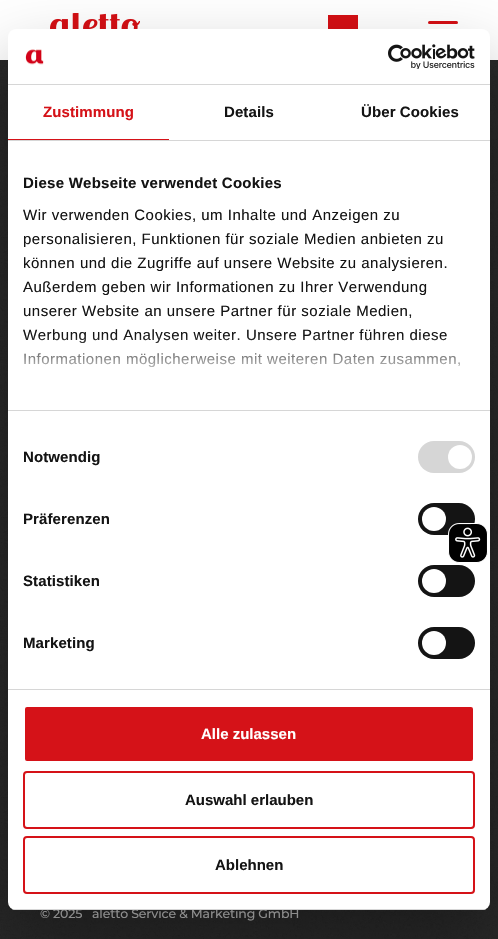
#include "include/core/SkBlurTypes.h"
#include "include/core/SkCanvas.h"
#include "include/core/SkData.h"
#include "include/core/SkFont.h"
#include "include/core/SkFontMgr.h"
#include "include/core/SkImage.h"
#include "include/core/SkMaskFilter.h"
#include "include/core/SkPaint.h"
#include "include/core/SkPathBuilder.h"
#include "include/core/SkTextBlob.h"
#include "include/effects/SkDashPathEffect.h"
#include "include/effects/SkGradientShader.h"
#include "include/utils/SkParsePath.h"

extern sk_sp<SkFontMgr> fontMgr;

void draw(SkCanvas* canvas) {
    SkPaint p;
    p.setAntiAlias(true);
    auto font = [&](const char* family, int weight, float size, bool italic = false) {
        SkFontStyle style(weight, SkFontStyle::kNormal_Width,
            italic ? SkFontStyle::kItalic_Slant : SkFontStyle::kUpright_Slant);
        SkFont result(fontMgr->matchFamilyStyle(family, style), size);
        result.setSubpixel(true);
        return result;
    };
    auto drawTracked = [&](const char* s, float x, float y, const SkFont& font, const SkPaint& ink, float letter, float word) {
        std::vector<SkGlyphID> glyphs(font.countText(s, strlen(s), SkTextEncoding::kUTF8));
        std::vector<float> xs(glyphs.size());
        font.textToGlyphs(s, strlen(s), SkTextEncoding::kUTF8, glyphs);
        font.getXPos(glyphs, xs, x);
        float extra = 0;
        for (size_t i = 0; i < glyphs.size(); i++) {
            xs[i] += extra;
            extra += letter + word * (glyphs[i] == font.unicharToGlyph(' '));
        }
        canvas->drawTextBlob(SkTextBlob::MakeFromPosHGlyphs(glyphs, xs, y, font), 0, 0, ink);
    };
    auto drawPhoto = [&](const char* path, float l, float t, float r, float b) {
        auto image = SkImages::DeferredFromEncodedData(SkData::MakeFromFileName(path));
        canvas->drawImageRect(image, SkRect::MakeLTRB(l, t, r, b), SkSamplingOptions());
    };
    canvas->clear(0xFFFFFFFF);
    drawPhoto("media/4.png", 50, 13, 140, 29);
    p.setColor(0xFFD40F14);
    canvas->drawRect(SkRect::MakeLTRB(328, 15, 358, 29), p);
    canvas->drawRoundRect(SkRect::MakeLTRB(428, 21, 458, 24), 1.5f, 1.5f, p);
    drawPhoto("media/5.png", 0, 60, 498, 939);
    p.setColor(0x4D000000);
    p.setMaskFilter(SkMaskFilter::MakeBlur(kNormal_SkBlurStyle, 34));
    canvas->drawRoundRect(SkRect::MakeLTRB(8, 61, 490, 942), 8, 8, p);
    p.setMaskFilter(nullptr);
    auto font1 = font("Montserrat", 500, 12.5f);
    p.setColor(0xFF8C8C8C);
    drawTracked("© 2025", 40, 918, font1, p, -0.15f, 0);
    drawTracked("aletto Service & Marketing GmbH", 92, 918, font1, p, -0.15f, 0);
    p.setColor(0xFFFFFFFF);
    canvas->drawRoundRect(SkRect::MakeLTRB(8, 29, 490, 910), 8, 8, p);
    p.setColor(0xFFD6D6D6);
    canvas->drawRect(SkRect::MakeLTRB(8, 84, 490, 85), p);
    drawPhoto("media/1.png", 25, 49, 44, 65);
    drawPhoto("media/2.png", 388, 44, 475, 69);
    canvas->drawRect(SkRect::MakeLTRB(8, 140, 490, 141), p);
    p.setColor(0xFFD51218);
    canvas->drawRect(SkRect::MakeLTRB(8, 139, 169, 140), p);
    auto font2 = font("Liberation Sans", 700, 15);
    drawTracked("Zustimmung", 43, 117, font2, p, 0.1f, 0);
    p.setColor(0xFF141414);
    drawTracked("Details", 224, 117, font2, p, 0.1f, 0);
    drawTracked("Über Cookies", 361, 117, font2, p, 0.1f, 0);
    p.setColor(0xFFD6D6D6);
    canvas->drawRect(SkRect::MakeLTRB(8, 410, 490, 411), p);
    p.setColor(0xFF141414);
    drawTracked("Diese Webseite verwendet Cookies", 23, 188, font2, p, 0.25f, 0);
    auto font3 = font("Liberation Sans", 400, 15);
    {
        const struct { const char* s; float x, y; } items[] = {
            {"Wir verwenden Cookies, um Inhalte und Anzeigen zu", 23, 220},
            {"personalisieren, Funktionen für soziale Medien anbieten zu", 23, 244},
            {"können und die Zugriffe auf unsere Website zu analysieren.", 23, 268},
            {"Außerdem geben wir Informationen zu Ihrer Verwendung", 23, 292},
            {"unserer Website an unsere Partner für soziale Medien,", 23, 316},
            {"Werbung und Analysen weiter. Unsere Partner führen diese", 23, 340},
            {"Informationen möglicherweise mit weiteren Daten zusammen,", 23, 364},
        };
        for (auto [s, x, y] : items) {
            drawTracked(s, x, y, font3, p, 0.5f, 0);
        }
    }
    {
        const SkColor colors[] = {0xFFFFFFFF, 0xCCFFFFFF, 0x00FFFFFF};
        const float stops[] = {0, 0.5f, 1};
        const SkPoint ends[] = {{243, 410}, {243, 335}};
        p.setShader(SkGradientShader::MakeLinear(ends, colors, stops, 3, SkTileMode::kClamp));
        p.setAlpha(255);
    }
    canvas->drawRect(SkRect::MakeLTRB(24, 336, 460, 368), p);
    p.setShader(nullptr);
    p.setColor(0xFFD6D6D6);
    canvas->drawRect(SkRect::MakeLTRB(8, 689, 490, 690), p);
    p.setColor(0xFF141414);
    drawTracked("Notwendig", 23, 462, font2, p, 0.1f, 0);
    p.setColor(0xFFD6D6D6);
    canvas->drawRoundRect(SkRect::MakeLTRB(418, 441, 475, 473), 16, 16, p);
    p.setColor(0xFFFFFFFF);
    canvas->drawCircle(460, 457, 12, p);
    p.setColor(0xFF141414);
    drawTracked("Präferenzen", 23, 524, font2, p, 0.1f, 0);
    canvas->drawRoundRect(SkRect::MakeLTRB(418, 503, 475, 535), 16, 16, p);
    p.setColor(0xFFFFFFFF);
    canvas->drawCircle(434, 519, 12, p);
    p.setColor(0xFF141414);
    drawTracked("Statistiken", 23, 586, font2, p, 0.1f, 0);
    canvas->drawRoundRect(SkRect::MakeLTRB(418, 565, 475, 597), 16, 16, p);
    p.setColor(0xFFFFFFFF);
    canvas->drawCircle(434, 581, 12, p);
    p.setColor(0xFF141414);
    drawTracked("Marketing", 23, 648, font2, p, 0.1f, 0);
    canvas->drawRoundRect(SkRect::MakeLTRB(418, 627, 475, 659), 16, 16, p);
    p.setColor(0xFFFFFFFF);
    canvas->drawCircle(434, 643, 12, p);
    canvas->save();
    canvas->clipPath(SkPathBuilder().moveTo(16, 29).lineTo(482, 29).cubicTo(486.5f, 29, 490, 32.5f, 490, 37).lineTo(490, 902).cubicTo(490, 906.5f, 486.5f, 910, 482, 910).lineTo(16, 910).cubicTo(11.5f, 910, 8, 906.5f, 8, 902).lineTo(8, 37).cubicTo(8, 32.5f, 11.5f, 29, 16, 29).close().detach(), true);
    p.setColor(0xFFD6D6D6);
    canvas->drawRect(SkRect::MakeLTRB(8, 909, 490, 910), p);
    canvas->restore();
    p.setColor(0xFFD51218);
    canvas->drawRoundRect(SkRect::MakeLTRB(24, 706, 474, 762), 3, 3, p);
    p.setStyle(SkPaint::kStroke_Style);
    p.setStrokeWidth(2);
    p.setColor(0xFFFFFFFF);
    canvas->drawRoundRect(SkRect::MakeLTRB(24, 706, 474, 762), 3, 3, p);
    p.setStyle(SkPaint::kFill_Style);
    canvas->drawString("Alle zulassen", 201, 739, font2, p);
    p.setStyle(SkPaint::kStroke_Style);
    p.setColor(0xFFD51218);
    canvas->drawRoundRect(SkRect::MakeLTRB(24, 772, 474, 828), 3, 3, p);
    p.setStyle(SkPaint::kFill_Style);
    p.setColor(0xFF141414);
    canvas->drawString("Auswahl erlauben", 185, 805, font2, p);
    p.setStyle(SkPaint::kStroke_Style);
    p.setColor(0xFFD51218);
    canvas->drawRoundRect(SkRect::MakeLTRB(24, 837, 474, 893), 3, 3, p);
    p.setStyle(SkPaint::kFill_Style);
    p.setColor(0xFF141414);
    canvas->drawString("Ablehnen", 215, 870, font2, p);
    drawPhoto("media/3.png", 448, 523, 488, 563);
}
